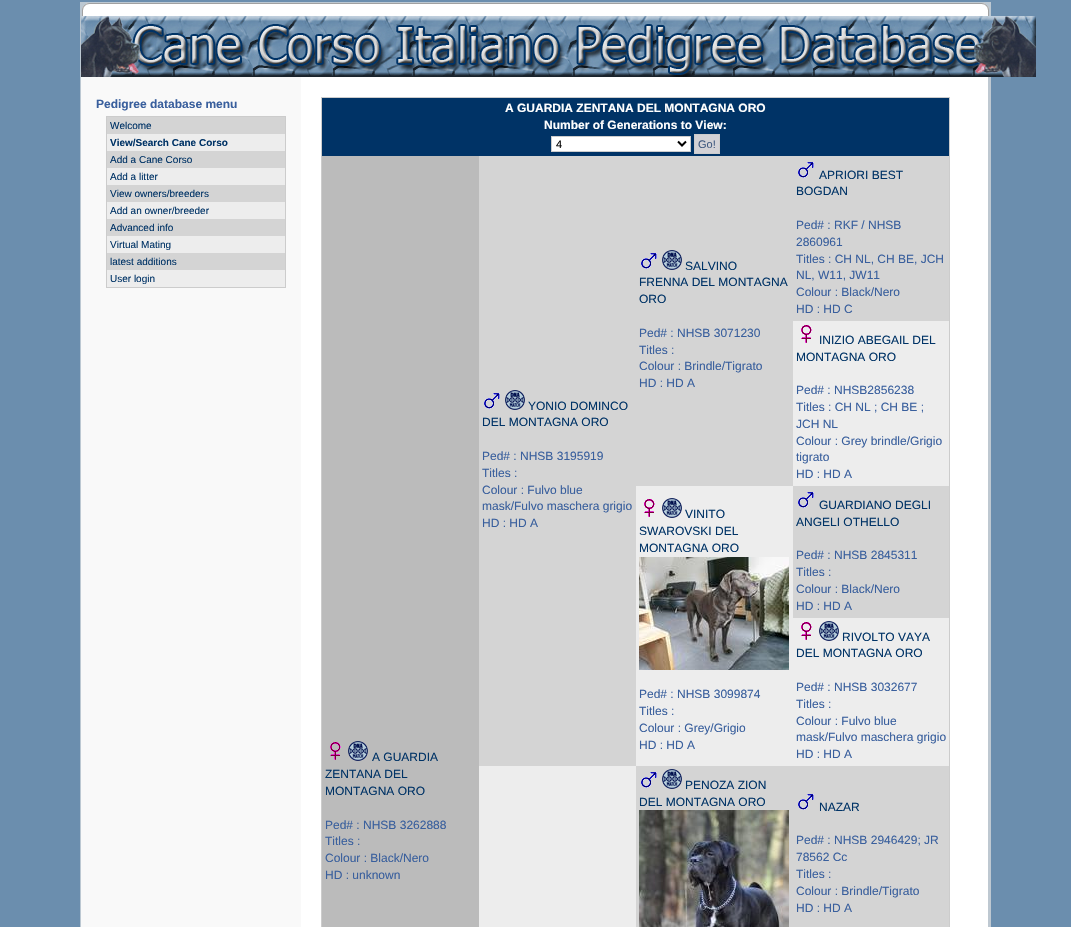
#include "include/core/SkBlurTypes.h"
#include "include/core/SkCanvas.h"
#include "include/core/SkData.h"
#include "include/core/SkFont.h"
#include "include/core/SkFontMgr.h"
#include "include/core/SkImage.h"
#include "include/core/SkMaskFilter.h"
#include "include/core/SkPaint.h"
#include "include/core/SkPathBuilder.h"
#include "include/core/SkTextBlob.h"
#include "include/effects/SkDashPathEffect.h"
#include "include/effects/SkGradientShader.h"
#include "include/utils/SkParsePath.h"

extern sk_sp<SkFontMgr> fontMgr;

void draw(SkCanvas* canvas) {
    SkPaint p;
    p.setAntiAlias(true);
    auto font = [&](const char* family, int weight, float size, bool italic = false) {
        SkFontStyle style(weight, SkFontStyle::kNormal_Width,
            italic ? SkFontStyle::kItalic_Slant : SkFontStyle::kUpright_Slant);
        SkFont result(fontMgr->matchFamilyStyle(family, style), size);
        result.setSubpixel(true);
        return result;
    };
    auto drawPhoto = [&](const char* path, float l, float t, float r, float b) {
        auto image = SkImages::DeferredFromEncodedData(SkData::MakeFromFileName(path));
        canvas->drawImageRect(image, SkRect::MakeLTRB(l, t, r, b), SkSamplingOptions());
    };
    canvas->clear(0xFF6B8EAE);
    {
        const struct { float l, t, r, b; SkColor color; } items[] = {
            {301, 77, 988, 927, 0xFFFFFFFF},
            {80, 16, 81, 927, 0xFFBCC8D2},
            {988, 77, 991, 927, 0xFFBEC8D1},
        };
        for (auto [l, t, r, b, color] : items) {
            p.setColor(color);
            canvas->drawRect(SkRect::MakeLTRB(l, t, r, b), p);
        }
    }
    drawPhoto("media/1.png", 80, 2, 991, 16);
    drawPhoto("media/2.png", 982, 3, 991, 16);
    drawPhoto("media/3.png", 81, 16, 1036, 77);
    p.setColor(0xFFF9F9F9);
    canvas->drawRect(SkRect::MakeLTRB(81, 77, 301, 927), p);
    auto font1 = font("Liberation Sans", 700, 12);
    p.setColor(0xFF395F9D);
    canvas->drawString("Pedigree database menu", 96, 108, font1, p);
    {
        const struct { float l, t, r, b; SkColor color; } items[] = {
            {106, 116, 286, 117, 0xFFCCCCCC},
            {285, 116, 286, 288, 0xFFCCCCCC},
            {106, 287, 286, 288, 0xFFCCCCCC},
            {106, 116, 107, 288, 0xFFCCCCCC},
            {107, 117, 285, 134, 0xFFD4D4D4},
        };
        for (auto [l, t, r, b, color] : items) {
            p.setColor(color);
            canvas->drawRect(SkRect::MakeLTRB(l, t, r, b), p);
        }
    }
    auto font2 = font("Liberation Sans", 400, 10);
    p.setColor(0xFF003366);
    canvas->drawString("Welcome", 110, 129, font2, p);
    p.setColor(0xFFEDEDED);
    canvas->drawRect(SkRect::MakeLTRB(107, 134, 285, 151), p);
    auto font3 = font("Liberation Sans", 700, 10);
    p.setColor(0xFF003366);
    canvas->drawString("View/Search Cane Corso", 110, 146, font3, p);
    p.setColor(0xFFD4D4D4);
    canvas->drawRect(SkRect::MakeLTRB(107, 151, 285, 168), p);
    p.setColor(0xFF003366);
    canvas->drawString("Add a Cane Corso", 110, 163, font2, p);
    p.setColor(0xFFEDEDED);
    canvas->drawRect(SkRect::MakeLTRB(107, 168, 285, 185), p);
    p.setColor(0xFF003366);
    canvas->drawString("Add a litter", 110, 180, font2, p);
    p.setColor(0xFFD4D4D4);
    canvas->drawRect(SkRect::MakeLTRB(107, 185, 285, 202), p);
    p.setColor(0xFF003366);
    canvas->drawString("View owners/breeders", 110, 197, font2, p);
    p.setColor(0xFFEDEDED);
    canvas->drawRect(SkRect::MakeLTRB(107, 202, 285, 219), p);
    p.setColor(0xFF003366);
    canvas->drawString("Add an owner/breeder", 110, 214, font2, p);
    p.setColor(0xFFD4D4D4);
    canvas->drawRect(SkRect::MakeLTRB(107, 219, 285, 236), p);
    p.setColor(0xFF003366);
    canvas->drawString("Advanced info", 110, 231, font2, p);
    p.setColor(0xFFEDEDED);
    canvas->drawRect(SkRect::MakeLTRB(107, 236, 285, 253), p);
    p.setColor(0xFF003366);
    canvas->drawString("Virtual Mating", 110, 248, font2, p);
    p.setColor(0xFFD4D4D4);
    canvas->drawRect(SkRect::MakeLTRB(107, 253, 285, 270), p);
    p.setColor(0xFF003366);
    canvas->drawString("latest additions", 110, 265, font2, p);
    p.setColor(0xFFEDEDED);
    canvas->drawRect(SkRect::MakeLTRB(107, 270, 285, 287), p);
    p.setColor(0xFF003366);
    canvas->drawString("User login", 110, 282, font2, p);
    {
        const struct { float l, t, r, b; SkColor color; } items[] = {
            {321, 97, 950, 98, 0xFFCCCCCC},
            {949, 97, 950, 927, 0xFFCCCCCC},
            {321, 97, 322, 927, 0xFFCCCCCC},
            {322, 98, 949, 156, 0xFF003366},
        };
        for (auto [l, t, r, b, color] : items) {
            p.setColor(color);
            canvas->drawRect(SkRect::MakeLTRB(l, t, r, b), p);
        }
    }
    p.setColor(0xFFFFFFFF);
    canvas->drawString("A GUARDIA ZENTANA DEL MONTAGNA ORO", 505, 112, font1, p);
    canvas->drawString("Number of Generations to View:", 544, 129, font1, p);
    canvas->drawRect(SkRect::MakeLTRB(551.5f, 136.5f, 690.5f, 151.5f), p);
    p.setStyle(SkPaint::kStroke_Style);
    p.setStrokeWidth(1);
    p.setColor(0xFFCCCCCC);
    canvas->drawRect(SkRect::MakeLTRB(551.5f, 136.5f, 690.5f, 151.5f), p);
    p.setStrokeWidth(2);
    p.setColor(0xFF000000);
    canvas->drawPath(SkPathBuilder().moveTo(678, 141.5f).lineTo(682, 145.5f).lineTo(686, 141.5f).detach(), p);
    auto font4 = font("Liberation Sans", 400, 11);
    p.setStyle(SkPaint::kFill_Style);
    canvas->drawString("4", 556, 148, font4, p);
    p.setColor(0xFFD3D2D6);
    canvas->drawRect(SkRect::MakeLTRB(694.5f, 134.5f, 719.5f, 153.5f), p);
    p.setStyle(SkPaint::kStroke_Style);
    p.setStrokeWidth(1);
    p.setColor(0xFFCCCCCC);
    canvas->drawRect(SkRect::MakeLTRB(694.5f, 134.5f, 719.5f, 153.5f), p);
    p.setStyle(SkPaint::kFill_Style);
    p.setColor(0xFF405A80);
    canvas->drawString("Go!", 698, 148, font4, p);
    p.setColor(0xFFD4D4D4);
    canvas->drawRect(SkRect::MakeLTRB(636, 156, 793, 486), p);
    drawPhoto("media/4.png", 641, 253, 657, 269);
    drawPhoto("media/5.png", 662, 250, 682, 270);
    auto font5 = font("Liberation Sans", 400, 12);
    p.setColor(0xFF003366);
    {
        const struct { const char* s; float x, y; } items[] = {
            {"SALVINO", 685, 270},
            {"FRENNA DEL MONTAGNA", 639, 286},
            {"ORO", 639, 303},
        };
        for (auto [s, x, y] : items) {
            canvas->drawString(s, x, y, font5, p);
        }
    }
    p.setColor(0xFF395F9D);
    {
        const struct { const char* s; float x, y; } items[] = {
            {"Ped# : NHSB 3071230", 639, 337},
            {"Titles :", 639, 354},
            {"Colour : Brindle/Tigrato", 639, 370},
            {"HD : HD A", 639, 387},
        };
        for (auto [s, x, y] : items) {
            canvas->drawString(s, x, y, font5, p);
        }
    }
    p.setColor(0xFFD4D4D4);
    canvas->drawRect(SkRect::MakeLTRB(793, 156, 949, 321), p);
    drawPhoto("media/4.png", 798, 162, 814, 178);
    p.setColor(0xFF003366);
    canvas->drawString("APRIORI BEST", 819, 179, font5, p);
    canvas->drawString("BOGDAN", 796, 195, font5, p);
    p.setColor(0xFF395F9D);
    {
        const struct { const char* s; float x, y; } items[] = {
            {"Ped# : RKF / NHSB", 796, 229},
            {"2860961", 796, 246},
            {"Titles : CH NL, CH BE, JCH", 796, 263},
            {"NL, W11, JW11", 796, 279},
            {"Colour : Black/Nero", 796, 296},
            {"HD : HD C", 796, 313},
        };
        for (auto [s, x, y] : items) {
            canvas->drawString(s, x, y, font5, p);
        }
    }
    p.setColor(0xFFD4D4D4);
    canvas->drawRect(SkRect::MakeLTRB(479, 156, 636, 766), p);
    drawPhoto("media/4.png", 484, 393, 500, 409);
    drawPhoto("media/5.png", 505, 390, 525, 410);
    p.setColor(0xFF003366);
    canvas->drawString("YONIO DOMINCO", 528, 410, font5, p);
    canvas->drawString("DEL MONTAGNA ORO", 482, 426, font5, p);
    p.setColor(0xFF395F9D);
    {
        const struct { const char* s; float x, y; } items[] = {
            {"Ped# : NHSB 3195919", 482, 460},
            {"Titles :", 482, 477},
            {"Colour : Fulvo blue", 482, 494},
            {"mask/Fulvo maschera grigio", 482, 510},
            {"HD : HD A", 482, 527},
        };
        for (auto [s, x, y] : items) {
            canvas->drawString(s, x, y, font5, p);
        }
    }
    p.setColor(0xFFBBBBBB);
    canvas->drawRect(SkRect::MakeLTRB(322, 156, 479, 927), p);
    drawPhoto("media/6.png", 330, 742, 341, 760);
    drawPhoto("media/7.png", 348, 741, 368, 761);
    p.setColor(0xFF003366);
    {
        const struct { const char* s; float x, y; } items[] = {
            {"A GUARDIA", 372, 761},
            {"ZENTANA DEL", 325, 778},
            {"MONTAGNA ORO", 325, 795},
        };
        for (auto [s, x, y] : items) {
            canvas->drawString(s, x, y, font5, p);
        }
    }
    p.setColor(0xFF395F9D);
    {
        const struct { const char* s; float x, y; } items[] = {
            {"Ped# : NHSB 3262888", 325, 829},
            {"Titles :", 325, 845},
            {"Colour : Black/Nero", 325, 862},
            {"HD : unknown", 325, 879},
        };
        for (auto [s, x, y] : items) {
            canvas->drawString(s, x, y, font5, p);
        }
    }
    p.setColor(0xFFEDEDED);
    canvas->drawRect(SkRect::MakeLTRB(793, 321, 949, 486), p);
    drawPhoto("media/8.png", 801, 325, 812, 343);
    p.setColor(0xFF003366);
    canvas->drawString("INIZIO ABEGAIL DEL", 819, 344, font5, p);
    canvas->drawString("MONTAGNA ORO", 796, 361, font5, p);
    p.setColor(0xFF395F9D);
    {
        const struct { const char* s; float x, y; } items[] = {
            {"Ped# : NHSB2856238", 796, 394},
            {"Titles : CH NL ; CH BE ;", 796, 411},
            {"JCH NL", 796, 428},
            {"Colour : Grey brindle/Grigio", 796, 445},
            {"tigrato", 796, 461},
            {"HD : HD A", 796, 478},
        };
        for (auto [s, x, y] : items) {
            canvas->drawString(s, x, y, font5, p);
        }
    }
    p.setColor(0xFFEDEDED);
    canvas->drawRect(SkRect::MakeLTRB(636, 486, 793, 766), p);
    drawPhoto("media/8.png", 644, 499, 655, 517);
    drawPhoto("media/9.png", 662, 498, 682, 518);
    p.setColor(0xFF003366);
    {
        const struct { const char* s; float x, y; } items[] = {
            {"VINITO", 685, 518},
            {"SWAROVSKI DEL", 639, 535},
            {"MONTAGNA ORO", 639, 552},
        };
        for (auto [s, x, y] : items) {
            canvas->drawString(s, x, y, font5, p);
        }
    }
    drawPhoto("media/10.png", 639, 557, 789, 670);
    p.setColor(0xFF395F9D);
    {
        const struct { const char* s; float x, y; } items[] = {
            {"Ped# : NHSB 3099874", 639, 698},
            {"Titles :", 639, 715},
            {"Colour : Grey/Grigio", 639, 732},
            {"HD : HD A", 639, 749},
        };
        for (auto [s, x, y] : items) {
            canvas->drawString(s, x, y, font5, p);
        }
    }
    p.setColor(0xFFD4D4D4);
    canvas->drawRect(SkRect::MakeLTRB(793, 486, 949, 618), p);
    drawPhoto("media/4.png", 798, 492, 814, 508);
    p.setColor(0xFF003366);
    canvas->drawString("GUARDIANO DEGLI", 819, 509, font5, p);
    canvas->drawString("ANGELI OTHELLO", 796, 526, font5, p);
    p.setColor(0xFF395F9D);
    {
        const struct { const char* s; float x, y; } items[] = {
            {"Ped# : NHSB 2845311", 796, 559},
            {"Titles :", 796, 576},
            {"Colour : Black/Nero", 796, 593},
            {"HD : HD A", 796, 610},
        };
        for (auto [s, x, y] : items) {
            canvas->drawString(s, x, y, font5, p);
        }
    }
    p.setColor(0xFFEDEDED);
    canvas->drawRect(SkRect::MakeLTRB(793, 618, 949, 766), p);
    drawPhoto("media/8.png", 801, 622, 812, 640);
    drawPhoto("media/9.png", 819, 621, 839, 641);
    p.setColor(0xFF003366);
    canvas->drawString("RIVOLTO VAYA", 842, 641, font5, p);
    canvas->drawString("DEL MONTAGNA ORO", 796, 657, font5, p);
    p.setColor(0xFF395F9D);
    {
        const struct { const char* s; float x, y; } items[] = {
            {"Ped# : NHSB 3032677", 796, 691},
            {"Titles :", 796, 708},
            {"Colour : Fulvo blue", 796, 725},
            {"mask/Fulvo maschera grigio", 796, 741},
            {"HD : HD A", 796, 758},
        };
        for (auto [s, x, y] : items) {
            canvas->drawString(s, x, y, font5, p);
        }
    }
    p.setColor(0xFFEDEDED);
    canvas->drawRect(SkRect::MakeLTRB(479, 766, 636, 927), p);
    p.setColor(0xFFD4D4D4);
    canvas->drawRect(SkRect::MakeLTRB(636, 766, 949, 927), p);
    drawPhoto("media/4.png", 641, 772, 657, 788);
    drawPhoto("media/5.png", 662, 769, 682, 789);
    p.setColor(0xFF003366);
    canvas->drawString("PENOZA ZION", 685, 789, font5, p);
    canvas->drawString("DEL MONTAGNA ORO", 639, 806, font5, p);
    drawPhoto("media/11.png", 639, 810, 789, 927);
    drawPhoto("media/4.png", 798, 794, 814, 810);
    canvas->drawString("NAZAR", 819, 811, font5, p);
    p.setColor(0xFF395F9D);
    {
        const struct { const char* s; float x, y; } items[] = {
            {"Ped# : NHSB 2946429; JR", 796, 844},
            {"78562 Cc", 796, 861},
            {"Titles :", 796, 878},
            {"Colour : Brindle/Tigrato", 796, 895},
            {"HD : HD A", 796, 912},
        };
        for (auto [s, x, y] : items) {
            canvas->drawString(s, x, y, font5, p);
        }
    }
}
